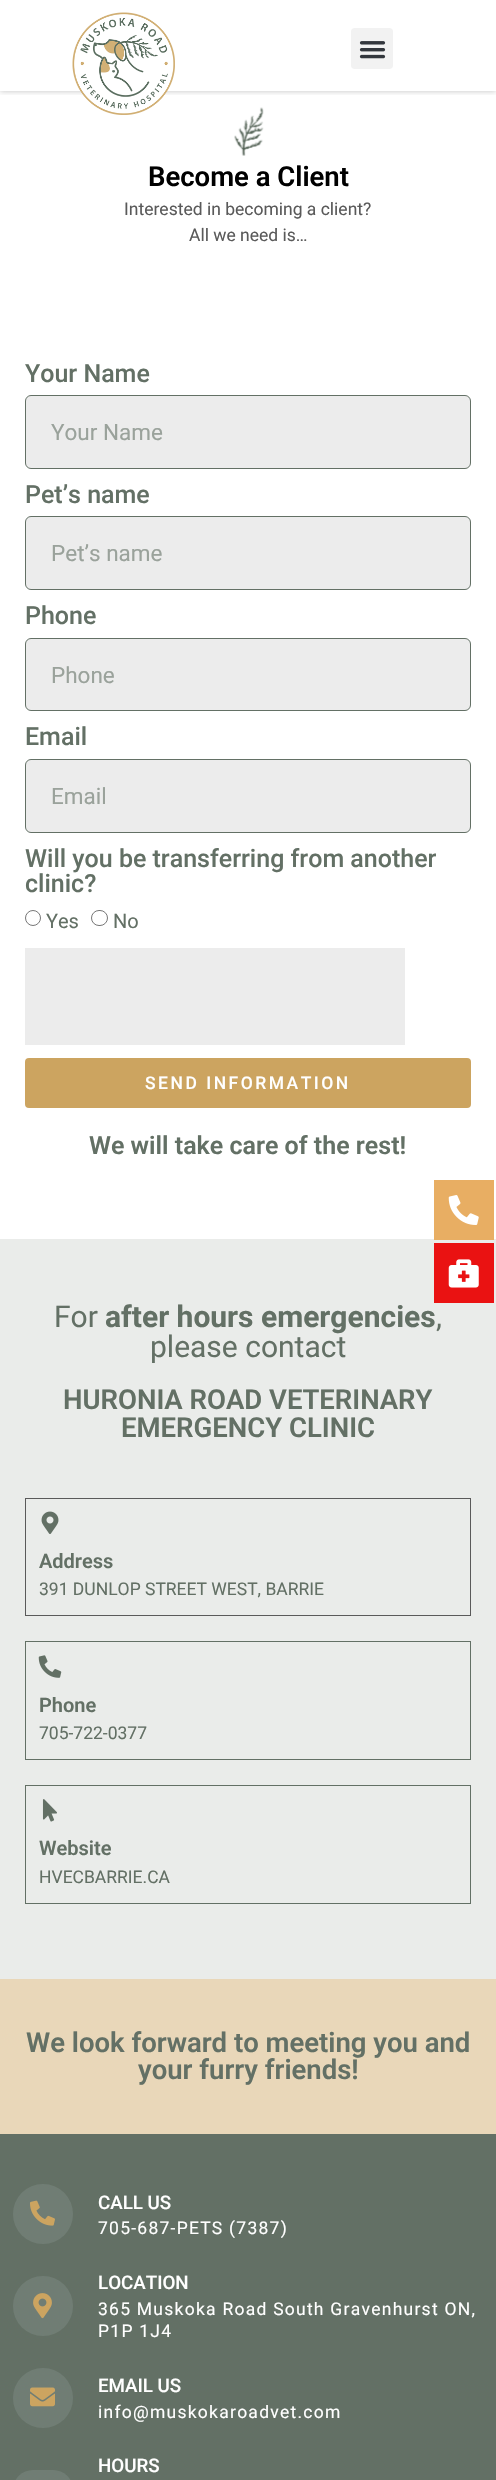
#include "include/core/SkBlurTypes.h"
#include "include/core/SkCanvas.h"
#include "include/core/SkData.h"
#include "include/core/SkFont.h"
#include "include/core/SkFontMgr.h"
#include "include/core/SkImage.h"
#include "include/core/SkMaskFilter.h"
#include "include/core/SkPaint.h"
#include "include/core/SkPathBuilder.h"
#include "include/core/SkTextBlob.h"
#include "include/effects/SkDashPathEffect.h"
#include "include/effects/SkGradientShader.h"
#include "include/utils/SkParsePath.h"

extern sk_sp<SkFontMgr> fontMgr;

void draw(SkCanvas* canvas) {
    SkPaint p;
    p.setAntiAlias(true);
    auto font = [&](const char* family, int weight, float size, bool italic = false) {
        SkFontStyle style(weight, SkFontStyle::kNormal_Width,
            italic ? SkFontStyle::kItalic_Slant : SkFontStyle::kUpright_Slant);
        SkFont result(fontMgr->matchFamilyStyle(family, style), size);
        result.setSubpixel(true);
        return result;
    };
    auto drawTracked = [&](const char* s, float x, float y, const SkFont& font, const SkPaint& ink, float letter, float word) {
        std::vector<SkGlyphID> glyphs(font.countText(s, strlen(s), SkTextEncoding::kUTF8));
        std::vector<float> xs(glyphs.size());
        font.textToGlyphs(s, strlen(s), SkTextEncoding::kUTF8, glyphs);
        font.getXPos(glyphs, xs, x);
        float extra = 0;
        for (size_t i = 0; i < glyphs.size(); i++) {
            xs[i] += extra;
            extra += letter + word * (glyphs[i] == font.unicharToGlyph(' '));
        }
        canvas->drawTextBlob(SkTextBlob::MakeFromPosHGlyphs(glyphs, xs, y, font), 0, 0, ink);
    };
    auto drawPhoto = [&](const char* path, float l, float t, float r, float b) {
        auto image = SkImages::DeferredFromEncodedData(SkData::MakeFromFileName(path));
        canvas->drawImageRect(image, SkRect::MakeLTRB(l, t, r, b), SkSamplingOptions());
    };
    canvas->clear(0xFFFFFFFF);
    canvas->save();
    canvas->clipRect(SkRect::MakeLTRB(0, 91, 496, 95));
    p.setColor(0x3D000000);
    p.setMaskFilter(SkMaskFilter::MakeBlur(kNormal_SkBlurStyle, 3));
    canvas->drawRect(SkRect::MakeLTRB(0, 0, 496, 91), p);
    p.setMaskFilter(nullptr);
    canvas->restore();
    drawPhoto("media/1.png", 72, 12, 175, 115);
    p.setColor(0xFFF2F2F2);
    canvas->drawRoundRect(SkRect::MakeLTRB(351, 28, 393, 69), 4, 4, p);
    drawPhoto("media/2.png", 359, 41, 386, 59);
    drawPhoto("media/3.png", 234, 107, 264, 156);
    auto font1 = font("Roboto", 600, 27.5f);
    p.setColor(0xFF000000);
    canvas->drawString("Become a Client", 148, 186, font1, p);
    auto font2 = font("Roboto", 400, 17.5f);
    p.setColor(0xFF5A5A5A);
    canvas->drawString("Interested in becoming a client?", 124, 215, font2, p);
    canvas->drawString("All we need is…", 189, 241, font2, p);
    auto font3 = font("Roboto", 500, 25);
    p.setColor(0xFF637065);
    canvas->drawString("Your Name", 25, 382, font3, p);
    p.setColor(0xFFECECEC);
    canvas->drawRoundRect(SkRect::MakeLTRB(25.5f, 395.5f, 470.5f, 468.5f), 5.5f, 5.5f, p);
    p.setStyle(SkPaint::kStroke_Style);
    p.setStrokeWidth(1);
    p.setColor(0xFF637065);
    canvas->drawRoundRect(SkRect::MakeLTRB(25.5f, 395.5f, 470.5f, 468.5f), 5.5f, 5.5f, p);
    auto font4 = font("Roboto", 400, 22.5f);
    p.setStyle(SkPaint::kFill_Style);
    p.setColor(0xFF9AA29B);
    canvas->drawString("Your Name", 51, 440, font4, p);
    p.setColor(0xFF637065);
    canvas->drawString("Pet’s name", 25, 503, font3, p);
    p.setColor(0xFFECECEC);
    canvas->drawRoundRect(SkRect::MakeLTRB(25.5f, 516.5f, 470.5f, 589.5f), 5.5f, 5.5f, p);
    p.setStyle(SkPaint::kStroke_Style);
    p.setColor(0xFF637065);
    canvas->drawRoundRect(SkRect::MakeLTRB(25.5f, 516.5f, 470.5f, 589.5f), 5.5f, 5.5f, p);
    p.setStyle(SkPaint::kFill_Style);
    p.setColor(0xFF9AA29B);
    canvas->drawString("Pet’s name", 51, 561, font4, p);
    p.setColor(0xFF637065);
    canvas->drawString("Phone", 25, 624, font3, p);
    p.setColor(0xFFECECEC);
    canvas->drawRoundRect(SkRect::MakeLTRB(25.5f, 638.5f, 470.5f, 710.5f), 5.5f, 5.5f, p);
    p.setStyle(SkPaint::kStroke_Style);
    p.setColor(0xFF637065);
    canvas->drawRoundRect(SkRect::MakeLTRB(25.5f, 638.5f, 470.5f, 710.5f), 5.5f, 5.5f, p);
    p.setStyle(SkPaint::kFill_Style);
    p.setColor(0xFF9AA29B);
    canvas->drawString("Phone", 51, 683, font4, p);
    p.setColor(0xFF637065);
    canvas->drawString("Email", 25, 745, font3, p);
    p.setColor(0xFFECECEC);
    canvas->drawRoundRect(SkRect::MakeLTRB(25.5f, 759.5f, 470.5f, 832.5f), 5.5f, 5.5f, p);
    p.setStyle(SkPaint::kStroke_Style);
    p.setColor(0xFF637065);
    canvas->drawRoundRect(SkRect::MakeLTRB(25.5f, 759.5f, 470.5f, 832.5f), 5.5f, 5.5f, p);
    p.setStyle(SkPaint::kFill_Style);
    p.setColor(0xFF9AA29B);
    canvas->drawString("Email", 51, 804, font4, p);
    p.setColor(0xFF637065);
    canvas->drawString("Will you be transferring from another", 25, 867, font3, p);
    canvas->drawString("clinic?", 25, 892, font3, p);
    p.setStyle(SkPaint::kStroke_Style);
    p.setColor(0xFF767676);
    canvas->drawCircle(33, 918, 7.5f, p);
    auto font5 = font("Roboto", 400, 20);
    p.setStyle(SkPaint::kFill_Style);
    p.setColor(0xFF637065);
    canvas->drawString("Yes", 46, 928, font5, p);
    p.setStyle(SkPaint::kStroke_Style);
    p.setColor(0xFF767676);
    canvas->drawRoundRect(SkRect::MakeLTRB(91.5f, 910.5f, 107.5f, 925.5f), 7.5f, 7.5f, p);
    p.setStyle(SkPaint::kFill_Style);
    p.setColor(0xFF637065);
    canvas->drawString("No", 113, 928, font5, p);
    p.setColor(0xFFECECEC);
    canvas->drawRect(SkRect::MakeLTRB(25, 948, 405, 1045), p);
    p.setColor(0xFFCCA460);
    canvas->drawRoundRect(SkRect::MakeLTRB(25, 1058, 471, 1108), 4, 4, p);
    auto font6 = font("Roboto", 500, 17.5f);
    p.setColor(0xFFFFFFFF);
    drawTracked("SEND INFORMATION", 145, 1089, font6, p, 2.5f, 0);
    auto font7 = font("Roboto", 600, 25);
    p.setColor(0xFF637065);
    canvas->drawString("We will take care of the rest!", 89, 1154, font7, p);
    p.setColor(0xFFEAECEA);
    canvas->drawRect(SkRect::MakeLTRB(0, 1239, 496, 1979), p);
    p.setColor(0xFFE8AE63);
    canvas->drawRect(SkRect::MakeLTRB(434, 1180, 494, 1240), p);
    drawPhoto("media/4.png", 448, 1195, 479, 1225);
    p.setColor(0xFFEA1212);
    canvas->drawRect(SkRect::MakeLTRB(434, 1243, 494, 1303), p);
    drawPhoto("media/5.png", 448, 1259, 479, 1288);
    auto font8 = font("Roboto", 400, 30);
    p.setColor(0xFF637065);
    canvas->drawString("For", 54, 1327, font8, p);
    auto font9 = font("Roboto", 700, 30);
    canvas->drawString("after hours emergencies", 105, 1327, font9, p);
    canvas->drawString(",", 436, 1327, font8, p);
    canvas->drawString("please contact", 150, 1357, font8, p);
    canvas->drawString("HURONIA ROAD VETERINARY", 63, 1409, font1, p);
    canvas->drawString("EMERGENCY CLINIC", 121, 1437, font1, p);
    p.setStyle(SkPaint::kStroke_Style);
    p.setColor(0xFF5A5A5A);
    canvas->drawRect(SkRect::MakeLTRB(25.5f, 1498.5f, 470.5f, 1615.5f), p);
    drawPhoto("media/6.png", 41, 1511, 59, 1534);
    auto font10 = font("Roboto", 600, 20);
    p.setStyle(SkPaint::kFill_Style);
    p.setColor(0xFF637065);
    canvas->drawString("Address", 39, 1568, font10, p);
    canvas->drawString("391 DUNLOP STREET WEST, BARRIE", 39, 1595, font2, p);
    p.setStyle(SkPaint::kStroke_Style);
    canvas->drawRect(SkRect::MakeLTRB(25.5f, 1641.5f, 470.5f, 1759.5f), p);
    drawPhoto("media/7.png", 38, 1655, 62, 1678);
    p.setStyle(SkPaint::kFill_Style);
    canvas->drawString("Phone", 39, 1712, font10, p);
    canvas->drawString("705-722-0377", 39, 1739, font2, p);
    p.setStyle(SkPaint::kStroke_Style);
    canvas->drawRect(SkRect::MakeLTRB(25.5f, 1785.5f, 470.5f, 1903.5f), p);
    drawPhoto("media/8.png", 42, 1799, 57, 1822);
    p.setStyle(SkPaint::kFill_Style);
    canvas->drawString("Website", 39, 1855, font10, p);
    canvas->drawString("HVECBARRIE.CA", 39, 1883, font2, p);
    p.setColor(0xFFE9D7B9);
    canvas->drawRect(SkRect::MakeLTRB(0, 1979, 496, 2134), p);
    p.setColor(0xFF637065);
    canvas->drawString("We look forward to meeting you and", 26, 2052, font1, p);
    canvas->drawString("your furry friends!", 138, 2079, font1, p);
    canvas->drawRect(SkRect::MakeLTRB(0, 2134, 496, 2480), p);
    p.setColor(0xFF707D74);
    canvas->drawCircle(43, 2214, 30, p);
    drawPhoto("media/9.png", 30, 2200, 55, 2226);
    auto font11 = font("Roboto", 500, 18.75f);
    p.setColor(0xFFFFFFFF);
    canvas->drawString("CALL US", 98, 2209, font11, p);
    drawTracked("705-687-PETS (7387)", 98, 2234, font2, p, 1.25f, 0);
    p.setColor(0xFF707D74);
    canvas->drawCircle(43, 2306, 30, p);
    drawPhoto("media/10.png", 33, 2293, 52, 2319);
    p.setColor(0xFFFFFFFF);
    canvas->drawString("LOCATION", 98, 2289, font11, p);
    drawTracked("365 Muskoka Road South Gravenhurst ON,", 98, 2315, font2, p, 1.25f, 0);
    drawTracked("P1P 1J4", 98, 2337, font2, p, 1.25f, 0);
    p.setColor(0xFF707D74);
    canvas->drawCircle(43, 2398, 30, p);
    drawPhoto("media/11.png", 30, 2387, 55, 2407);
    p.setColor(0xFFFFFFFF);
    canvas->drawString("EMAIL US", 98, 2392, font11, p);
    drawTracked("info@muskokaroadvet.com", 98, 2418, font2, p, 1.25f, 0);
    canvas->drawString("HOURS", 98, 2472, font11, p);
    p.setColor(0xFF707D74);
    canvas->drawRoundRect(SkRect::MakeLTRB(13, 2470, 73, 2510), 30, 30, p);
}
